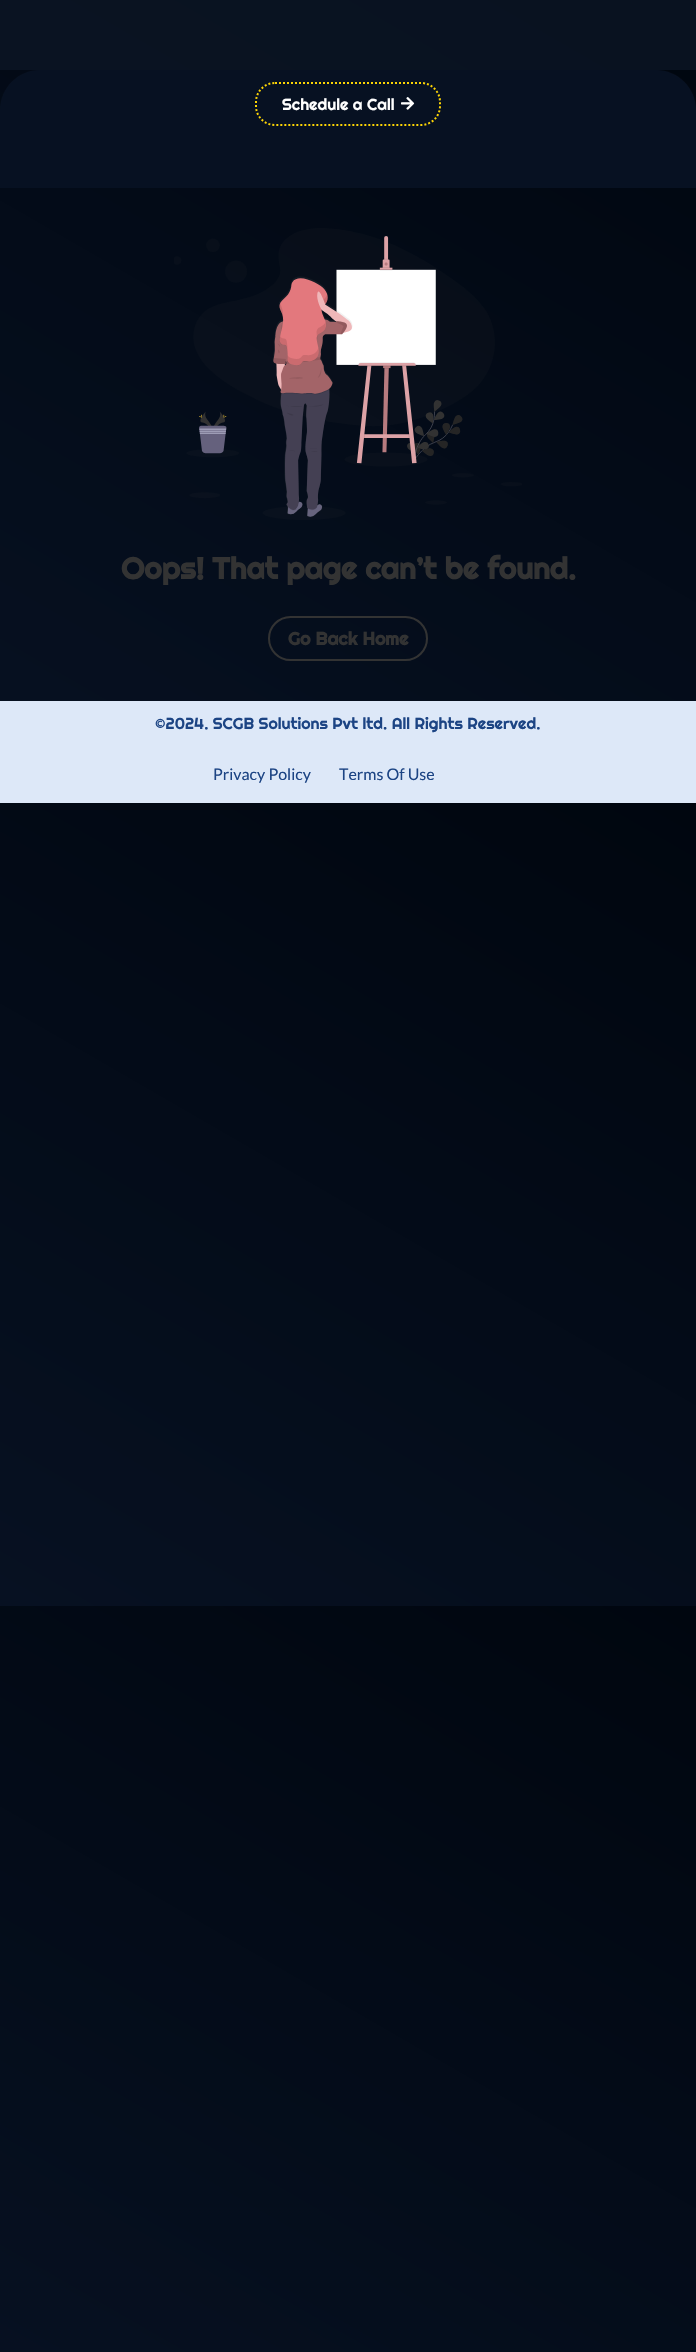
#include "include/core/SkBlurTypes.h"
#include "include/core/SkCanvas.h"
#include "include/core/SkData.h"
#include "include/core/SkFont.h"
#include "include/core/SkFontMgr.h"
#include "include/core/SkImage.h"
#include "include/core/SkMaskFilter.h"
#include "include/core/SkPaint.h"
#include "include/core/SkPathBuilder.h"
#include "include/core/SkTextBlob.h"
#include "include/effects/SkDashPathEffect.h"
#include "include/effects/SkGradientShader.h"
#include "include/utils/SkParsePath.h"

extern sk_sp<SkFontMgr> fontMgr;

void draw(SkCanvas* canvas) {
    SkPaint p;
    p.setAntiAlias(true);
    auto font = [&](const char* family, int weight, float size, bool italic = false) {
        SkFontStyle style(weight, SkFontStyle::kNormal_Width,
            italic ? SkFontStyle::kItalic_Slant : SkFontStyle::kUpright_Slant);
        SkFont result(fontMgr->matchFamilyStyle(family, style), size);
        result.setSubpixel(true);
        return result;
    };
    auto drawPhoto = [&](const char* path, float l, float t, float r, float b) {
        auto image = SkImages::DeferredFromEncodedData(SkData::MakeFromFileName(path));
        canvas->drawImageRect(image, SkRect::MakeLTRB(l, t, r, b), SkSamplingOptions());
    };
    canvas->clear(0xFFFFFFFF);
    {
        const SkColor colors[] = {0xFF00060F, 0xFF071122};
        const float stops[] = {0, 1};
        const SkPoint ends[] = {{609, -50}, {87, 853}};
        p.setShader(SkGradientShader::MakeLinear(ends, colors, stops, 2, SkTileMode::kClamp));
        p.setAlpha(255);
    }
    canvas->drawRect(SkRect::MakeLTRB(0, 70, 696, 701), p);
    {
        const SkColor colors[] = {0xFF091220, 0xFF0B1525};
        const float stops[] = {0, 1};
        const SkPoint ends[] = {{609, -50}, {87, 853}};
        p.setShader(SkGradientShader::MakeLinear(ends, colors, stops, 2, SkTileMode::kClamp));
        p.setAlpha(255);
    }
    canvas->drawRect(SkRect::MakeLTRB(0, 0, 696, 70), p);
    {
        const SkColor colors[] = {0xFF00060F, 0xFF071122};
        const float stops[] = {0, 1};
        const SkPoint ends[] = {{609, 753}, {87, 1656}};
        p.setShader(SkGradientShader::MakeLinear(ends, colors, stops, 2, SkTileMode::kClamp));
        p.setAlpha(255);
    }
    canvas->drawRect(SkRect::MakeLTRB(0, 803, 696, 1606), p);
    {
        const SkColor colors[] = {0xFF00060F, 0xFF071122};
        const float stops[] = {0, 1};
        const SkPoint ends[] = {{609, 1556}, {87, 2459}};
        p.setShader(SkGradientShader::MakeLinear(ends, colors, stops, 2, SkTileMode::kClamp));
        p.setAlpha(255);
    }
    canvas->drawRect(SkRect::MakeLTRB(0, 1606, 696, 2352), p);
    p.setShader(nullptr);
    p.setColor(0xFF071122);
    canvas->drawPath(SkPathBuilder().moveTo(40, 70).lineTo(656, 70).cubicTo(678, 70, 696, 88, 696, 110).lineTo(696, 188).lineTo(0, 188).lineTo(0, 110).cubicTo(0, 88, 18, 70, 40, 70).close().detach(), p);
    p.setStyle(SkPaint::kStroke_Style);
    p.setStrokeWidth(2);
    p.setColor(0xFFFCD404);
    p.setPathEffect(SkDashPathEffect::Make({{2, 2}}, 0));
    canvas->drawPath(SkPathBuilder().moveTo(275, 83).lineTo(421, 83).cubicTo(431.5f, 83, 440, 91.5f, 440, 102).lineTo(440, 106).cubicTo(440, 116.5f, 431.5f, 125, 421, 125).lineTo(275, 125).cubicTo(264.5f, 125, 256, 116.5f, 256, 106).lineTo(256, 102).cubicTo(256, 91.5f, 264.5f, 83, 275, 83).close().detach(), p);
    p.setPathEffect(nullptr);
    auto font1 = font("Righteous", 400, 16);
    p.setStyle(SkPaint::kFill_Style);
    p.setColor(0xFFFFFFFF);
    canvas->drawString("Schedule a Call", 282, 110, font1, p);
    drawPhoto("media/1.png", 401, 97, 415, 110);
    drawPhoto("media/2.png", 174, 228, 522, 520);
    auto font2 = font("Righteous", 700, 30);
    p.setColor(0xFF333333);
    canvas->drawString("Oops! That page can’t be found.", 121, 579, font2, p);
    p.setStyle(SkPaint::kStroke_Style);
    canvas->drawRoundRect(SkRect::MakeLTRB(269, 617, 427, 660), 21.5f, 21.5f, p);
    auto font3 = font("Righteous", 700, 18);
    p.setStyle(SkPaint::kFill_Style);
    canvas->drawString("Go Back Home", 288, 645, font3, p);
    p.setColor(0xFFDDE8F8);
    canvas->drawRect(SkRect::MakeLTRB(0, 701, 696, 803), p);
    p.setColor(0xFF1C4484);
    canvas->drawString("©2024. SCGB Solutions Pvt ltd. All Rights Reserved.", 155, 729, font1, p);
    auto font4 = font("Lato", 400, 16);
    canvas->drawString("Privacy Policy", 213, 780, font4, p);
    canvas->drawString("Terms Of Use", 339, 780, font4, p);
}
